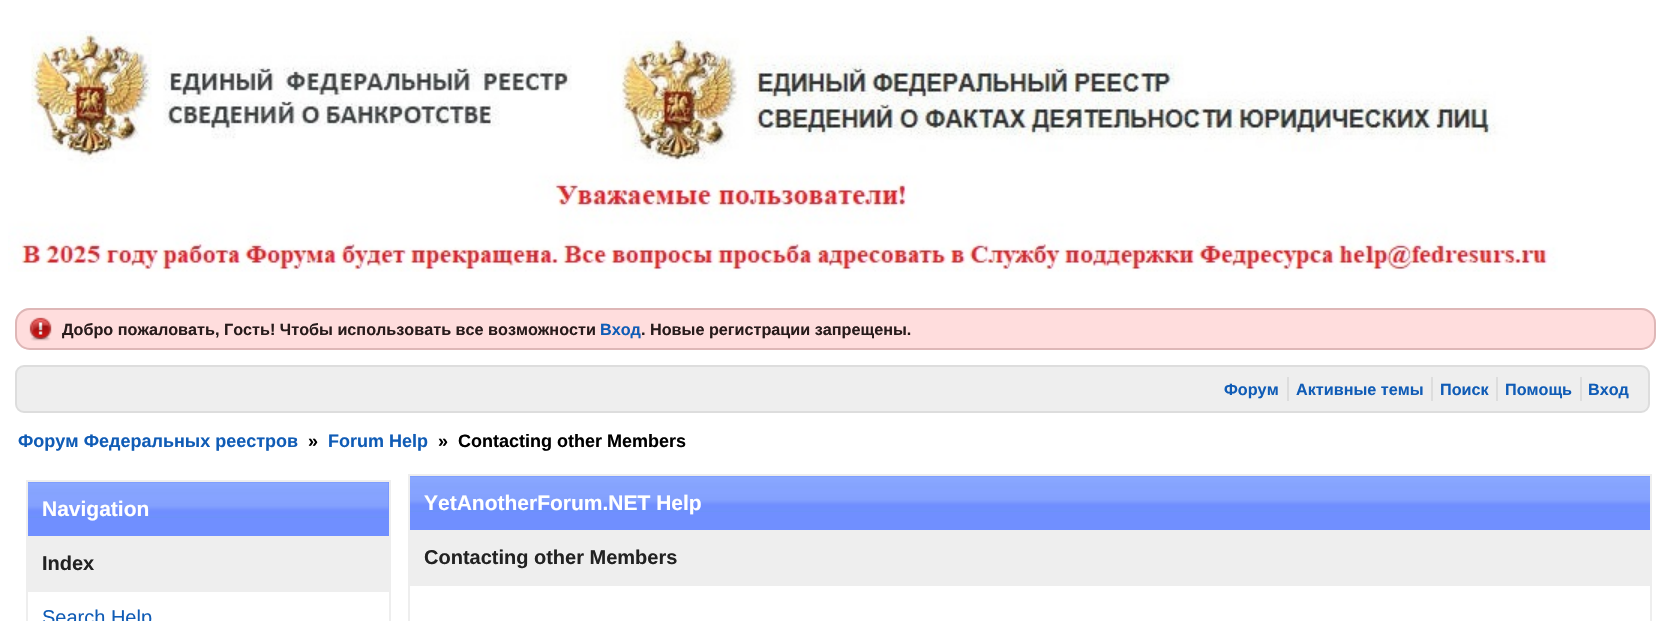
#include "include/core/SkBlurTypes.h"
#include "include/core/SkCanvas.h"
#include "include/core/SkData.h"
#include "include/core/SkFont.h"
#include "include/core/SkFontMgr.h"
#include "include/core/SkImage.h"
#include "include/core/SkMaskFilter.h"
#include "include/core/SkPaint.h"
#include "include/core/SkPathBuilder.h"
#include "include/core/SkTextBlob.h"
#include "include/effects/SkDashPathEffect.h"
#include "include/effects/SkGradientShader.h"
#include "include/utils/SkParsePath.h"

extern sk_sp<SkFontMgr> fontMgr;

void draw(SkCanvas* canvas) {
    SkPaint p;
    p.setAntiAlias(true);
    auto font = [&](const char* family, int weight, float size, bool italic = false) {
        SkFontStyle style(weight, SkFontStyle::kNormal_Width,
            italic ? SkFontStyle::kItalic_Slant : SkFontStyle::kUpright_Slant);
        SkFont result(fontMgr->matchFamilyStyle(family, style), size);
        result.setSubpixel(true);
        return result;
    };
    auto drawPhoto = [&](const char* path, float l, float t, float r, float b) {
        auto image = SkImages::DeferredFromEncodedData(SkData::MakeFromFileName(path));
        canvas->drawImageRect(image, SkRect::MakeLTRB(l, t, r, b), SkSamplingOptions());
    };
    canvas->clear(0xFFFFFFFF);
    drawPhoto("media/1.png", 8, 30, 1558, 272);
    p.setColor(0xFFFFDDDD);
    canvas->drawRoundRect(SkRect::MakeLTRB(15, 308, 1656, 350), 15, 15, p);
    drawPhoto("media/2.png", 29, 317, 52, 341);
    p.setStyle(SkPaint::kStroke_Style);
    p.setStrokeWidth(2);
    p.setColor(0xFFDEB7B7);
    canvas->drawRoundRect(SkRect::MakeLTRB(16, 309, 1655, 349), 14, 14, p);
    auto font1 = font("Liberation Sans", 700, 16.2f);
    p.setStyle(SkPaint::kFill_Style);
    p.setColor(0xFF281B1B);
    canvas->drawString("Добро пожаловать, Гость! Чтобы использовать все возможности", 62, 335, font1, p);
    p.setColor(0xFF105CB6);
    canvas->drawString("Вход", 600, 335, font1, p);
    p.setColor(0xFF281B1B);
    canvas->drawString(". Новые регистрации запрещены.", 641, 335, font1, p);
    p.setColor(0xFFEEEEEE);
    canvas->drawRoundRect(SkRect::MakeLTRB(16, 366, 1649, 412), 8, 8, p);
    p.setStyle(SkPaint::kStroke_Style);
    p.setColor(0xFFDDDDDD);
    canvas->drawRoundRect(SkRect::MakeLTRB(16, 366, 1649, 412), 8, 8, p);
    p.setStyle(SkPaint::kFill_Style);
    p.setColor(0xFF105CB6);
    canvas->drawString("Форум", 1224, 395, font1, p);
    canvas->drawString("Активные темы", 1296, 395, font1, p);
    p.setColor(0xFFDDDDDD);
    canvas->drawRect(SkRect::MakeLTRB(1287, 377, 1289, 401), p);
    p.setColor(0xFF105CB6);
    canvas->drawString("Поиск", 1440, 395, font1, p);
    p.setColor(0xFFDDDDDD);
    canvas->drawRect(SkRect::MakeLTRB(1431, 377, 1433, 401), p);
    p.setColor(0xFF105CB6);
    canvas->drawString("Помощь", 1505, 395, font1, p);
    p.setColor(0xFFDDDDDD);
    canvas->drawRect(SkRect::MakeLTRB(1496, 377, 1498, 401), p);
    p.setColor(0xFF105CB6);
    canvas->drawString("Вход", 1588, 395, font1, p);
    p.setColor(0xFFDDDDDD);
    canvas->drawRect(SkRect::MakeLTRB(1580, 377, 1582, 401), p);
    auto font2 = font("Liberation Sans", 700, 18);
    p.setColor(0xFF105CB6);
    canvas->drawString("Форум Федеральных реестров", 18, 447, font2, p);
    p.setColor(0xFF000000);
    canvas->drawString("»", 308, 447, font2, p);
    p.setColor(0xFF105CB6);
    canvas->drawString("Forum Help", 328, 447, font2, p);
    p.setColor(0xFF000000);
    canvas->drawString("»", 438, 447, font2, p);
    canvas->drawString("Contacting other Members", 458, 447, font2, p);
    p.setColor(0xFF708FFF);
    canvas->drawRect(SkRect::MakeLTRB(28, 482, 389, 536), p);
    drawPhoto("media/3.png", 28, 482, 389, 518);
    {
        const struct { float l, t, r, b; SkColor color; } items[] = {
            {26, 480, 390, 482, 0xFFEEEEEE},
            {26, 536, 390, 538, 0xFFEEEEEE},
            {26, 590, 390, 592, 0xFFEEEEEE},
            {389, 590, 391, 621, 0xFFEEEEEE},
            {389, 536, 391, 591, 0xFFEEEEEE},
            {389, 480, 391, 537, 0xFFEEEEEE},
            {26, 590, 28, 621, 0xFFEEEEEE},
            {26, 536, 28, 591, 0xFFEEEEEE},
            {26, 480, 28, 537, 0xFFEEEEEE},
        };
        for (auto [l, t, r, b, color] : items) {
            p.setColor(color);
            canvas->drawRect(SkRect::MakeLTRB(l, t, r, b), p);
        }
    }
    auto font3 = font("Liberation Sans", 700, 21);
    p.setColor(0xFFFFFFFF);
    canvas->drawString("Navigation", 42, 516, font3, p);
    p.setColor(0xFFEEEEEE);
    canvas->drawRect(SkRect::MakeLTRB(28, 538, 389, 590), p);
    auto font4 = font("Liberation Sans", 700, 20);
    p.setColor(0xFF222222);
    canvas->drawString("Index", 42, 570, font4, p);
    auto font5 = font("Liberation Sans", 400, 20);
    p.setColor(0xFF105CB6);
    canvas->drawString("Search Help", 42, 624, font5, p);
    p.setColor(0xFF708FFF);
    canvas->drawRect(SkRect::MakeLTRB(410, 512, 1650, 530), p);
    drawPhoto("media/4.png", 410, 476, 1650, 512);
    {
        const struct { float l, t, r, b; SkColor color; } items[] = {
            {408, 474, 1652, 476, 0xFFEEEEEE},
            {408, 530, 1652, 586, 0xFFEEEEEE},
            {1650, 474, 1652, 531, 0xFFEEEEEE},
            {408, 474, 410, 531, 0xFFEEEEEE},
        };
        for (auto [l, t, r, b, color] : items) {
            p.setColor(color);
            canvas->drawRect(SkRect::MakeLTRB(l, t, r, b), p);
        }
    }
    p.setColor(0xFFFFFFFF);
    canvas->drawString("YetAnotherForum.NET Help", 424, 510, font3, p);
    p.setColor(0xFF222222);
    canvas->drawString("Contacting other Members", 424, 564, font4, p);
    p.setColor(0xFFEEEEEE);
    canvas->drawRect(SkRect::MakeLTRB(1650, 584, 1652, 621), p);
    canvas->drawRect(SkRect::MakeLTRB(408, 584, 410, 621), p);
}
